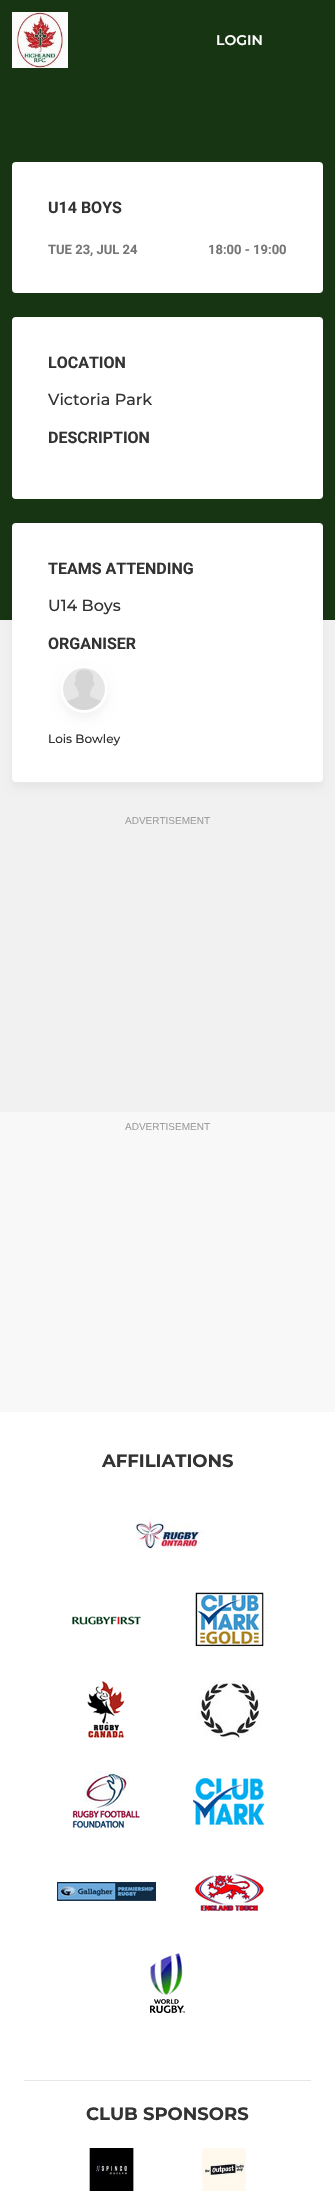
#include "include/core/SkBlurTypes.h"
#include "include/core/SkCanvas.h"
#include "include/core/SkData.h"
#include "include/core/SkFont.h"
#include "include/core/SkFontMgr.h"
#include "include/core/SkImage.h"
#include "include/core/SkMaskFilter.h"
#include "include/core/SkPaint.h"
#include "include/core/SkPathBuilder.h"
#include "include/core/SkTextBlob.h"
#include "include/effects/SkDashPathEffect.h"
#include "include/effects/SkGradientShader.h"
#include "include/utils/SkParsePath.h"

extern sk_sp<SkFontMgr> fontMgr;

void draw(SkCanvas* canvas) {
    SkPaint p;
    p.setAntiAlias(true);
    auto font = [&](const char* family, int weight, float size, bool italic = false) {
        SkFontStyle style(weight, SkFontStyle::kNormal_Width,
            italic ? SkFontStyle::kItalic_Slant : SkFontStyle::kUpright_Slant);
        SkFont result(fontMgr->matchFamilyStyle(family, style), size);
        result.setSubpixel(true);
        return result;
    };
    auto drawPhoto = [&](const char* path, float l, float t, float r, float b) {
        auto image = SkImages::DeferredFromEncodedData(SkData::MakeFromFileName(path));
        canvas->drawImageRect(image, SkRect::MakeLTRB(l, t, r, b), SkSamplingOptions());
    };
    canvas->clear(0xFFF1F1F1);
    p.setColor(0xFF173413);
    canvas->drawRect(SkRect::MakeLTRB(0, 0, 335, 620), p);
    drawPhoto("media/1.png", 12, 12, 68, 68);
    auto font1 = font("Montserrat", 600, 14);
    p.setColor(0xFFFFFFFF);
    canvas->drawString("LOGIN", 216, 45, font1, p);
    canvas->drawRoundRect(SkRect::MakeLTRB(12, 162, 323, 293), 4, 4, p);
    auto font2 = font("Roboto", 700, 16);
    p.setColor(0xFF333333);
    canvas->drawString("U14 BOYS", 48, 213, font2, p);
    auto font3 = font("Roboto", 700, 13);
    p.setColor(0xFF767676);
    canvas->drawString("TUE 23, JUL 24", 48, 254, font3, p);
    canvas->drawString("18:00 - 19:00", 208, 254, font3, p);
    p.setColor(0xFFFFFFFF);
    canvas->drawRoundRect(SkRect::MakeLTRB(12, 317, 323, 499), 4, 4, p);
    p.setColor(0xFF333333);
    canvas->drawString("LOCATION", 48, 368, font2, p);
    auto font4 = font("Montserrat", 500, 16);
    canvas->drawString("Victoria Park", 48, 405, font4, p);
    canvas->drawString("DESCRIPTION", 48, 443, font2, p);
    p.setColor(0x0D000000);
    p.setMaskFilter(SkMaskFilter::MakeBlur(kNormal_SkBlurStyle, 5));
    canvas->drawRoundRect(SkRect::MakeLTRB(12, 528, 323, 787), 4, 4, p);
    p.setMaskFilter(nullptr);
    p.setColor(0xFFFFFFFF);
    canvas->drawRoundRect(SkRect::MakeLTRB(12, 523, 323, 782), 4, 4, p);
    p.setColor(0xFF333333);
    canvas->drawString("TEAMS ATTENDING", 48, 574, font2, p);
    canvas->drawString("U14 Boys", 48, 611, font4, p);
    canvas->drawString("ORGANISER", 48, 649, font2, p);
    p.setColor(0x0D000000);
    p.setMaskFilter(SkMaskFilter::MakeBlur(kNormal_SkBlurStyle, 5));
    canvas->drawRoundRect(SkRect::MakeLTRB(60, 670, 108, 718), 24, 24, p);
    p.setMaskFilter(nullptr);
    p.setColor(0xFFFFFFFF);
    canvas->drawCircle(84, 689, 24, p);
    drawPhoto("media/2.png", 63, 668, 105, 710);
    auto font5 = font("Montserrat", 500, 12);
    p.setColor(0xFF333333);
    canvas->drawString("Lois Bowley", 48, 743, font5, p);
    auto font6 = font("Liberation Sans", 400, 10);
    p.setColor(0xFF9F9F9F);
    canvas->drawString("ADVERTISEMENT", 125, 824, font6, p);
    p.setColor(0xFFF8F8F8);
    canvas->drawRect(SkRect::MakeLTRB(0, 1112, 335, 1412), p);
    p.setColor(0xFF9F9F9F);
    canvas->drawString("ADVERTISEMENT", 125, 1130, font6, p);
    p.setColor(0xFFFFFFFF);
    canvas->drawRect(SkRect::MakeLTRB(0, 1412, 335, 2192), p);
    auto font7 = font("Montserrat", 700, 18);
    p.setColor(0xFF333333);
    canvas->drawString("AFFILIATIONS", 102, 1467, font7, p);
    drawPhoto("media/3.png", 135, 1517, 204, 1549);
    drawPhoto("media/4.png", 72, 1616, 141, 1625);
    drawPhoto("media/5.png", 195, 1592, 264, 1647);
    drawPhoto("media/6.png", 87, 1681, 125, 1738);
    drawPhoto("media/7.png", 197, 1680, 260, 1740);
    drawPhoto("media/8.png", 72, 1771, 140, 1828);
    drawPhoto("media/9.png", 193, 1778, 265, 1827);
    drawPhoto("media/10.png", 57, 1882, 156, 1901);
    drawPhoto("media/11.png", 193, 1873, 265, 1911);
    drawPhoto("media/12.png", 150, 1953, 185, 2013);
    p.setColor(0xFFE7E7E7);
    canvas->drawRect(SkRect::MakeLTRB(24, 2080, 311, 2081), p);
    p.setColor(0xFF333333);
    canvas->drawString("CLUB SPONSORS", 86, 2120, font7, p);
    drawPhoto("media/13.png", 89, 2148, 134, 2191);
    drawPhoto("media/14.png", 202, 2148, 246, 2191);
}
